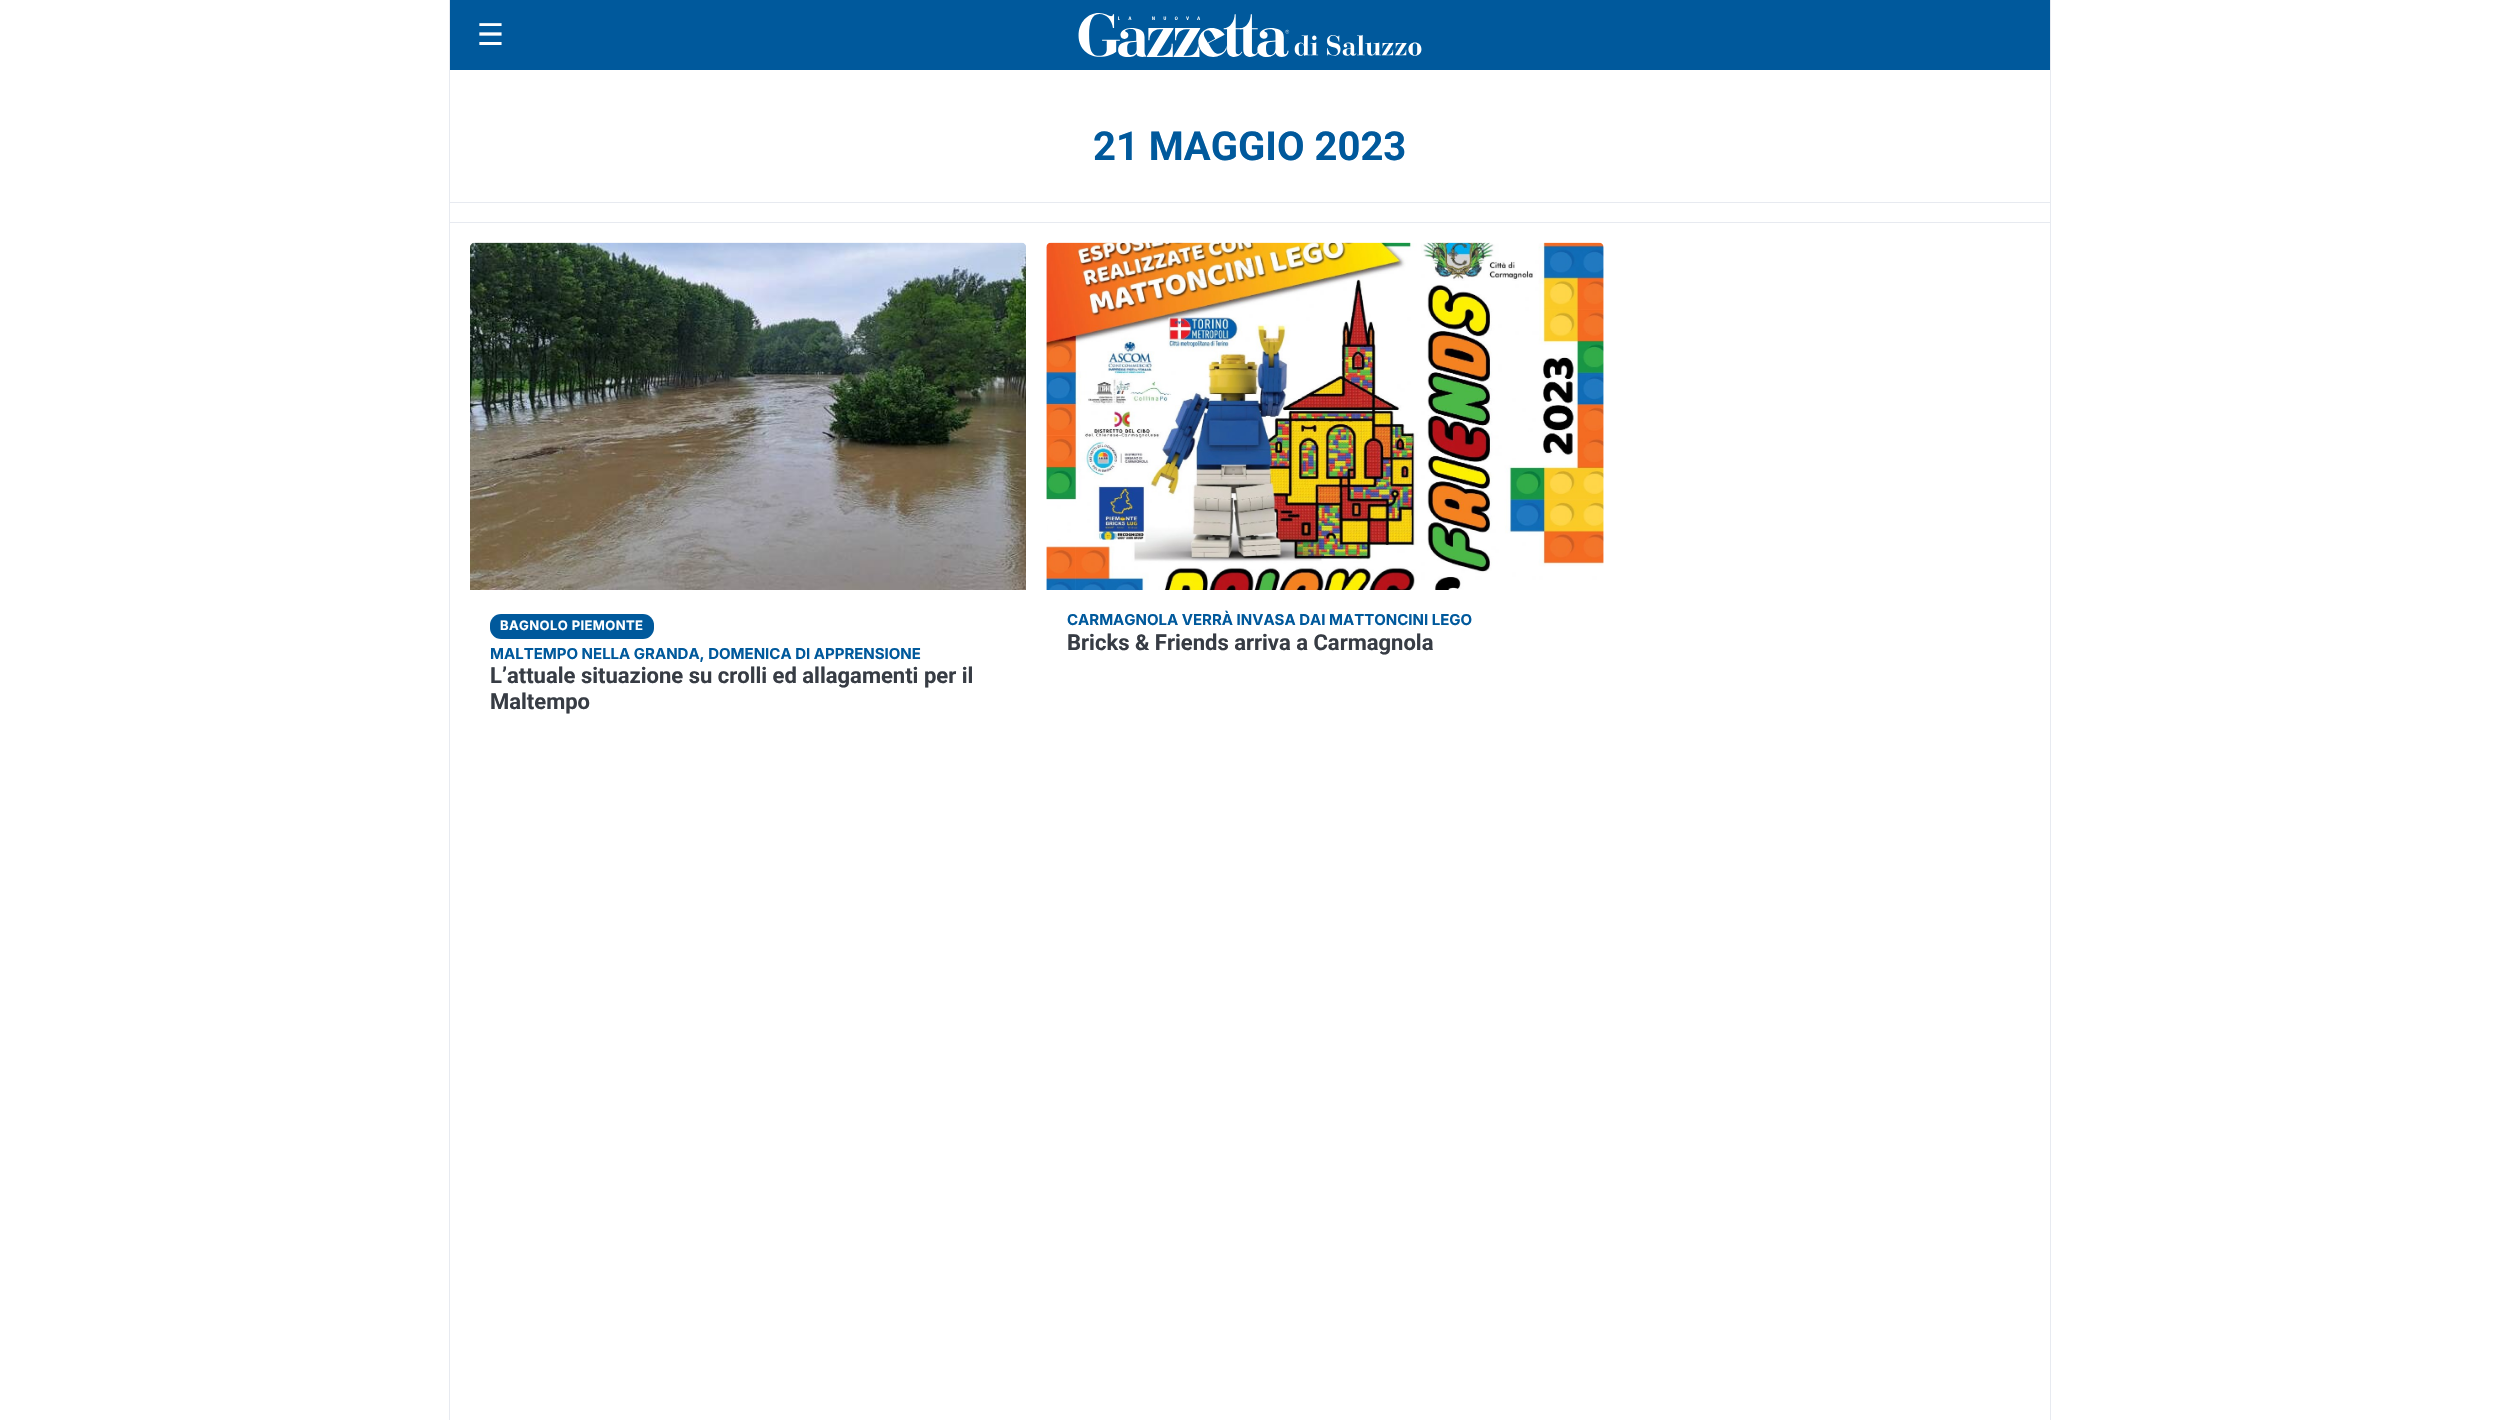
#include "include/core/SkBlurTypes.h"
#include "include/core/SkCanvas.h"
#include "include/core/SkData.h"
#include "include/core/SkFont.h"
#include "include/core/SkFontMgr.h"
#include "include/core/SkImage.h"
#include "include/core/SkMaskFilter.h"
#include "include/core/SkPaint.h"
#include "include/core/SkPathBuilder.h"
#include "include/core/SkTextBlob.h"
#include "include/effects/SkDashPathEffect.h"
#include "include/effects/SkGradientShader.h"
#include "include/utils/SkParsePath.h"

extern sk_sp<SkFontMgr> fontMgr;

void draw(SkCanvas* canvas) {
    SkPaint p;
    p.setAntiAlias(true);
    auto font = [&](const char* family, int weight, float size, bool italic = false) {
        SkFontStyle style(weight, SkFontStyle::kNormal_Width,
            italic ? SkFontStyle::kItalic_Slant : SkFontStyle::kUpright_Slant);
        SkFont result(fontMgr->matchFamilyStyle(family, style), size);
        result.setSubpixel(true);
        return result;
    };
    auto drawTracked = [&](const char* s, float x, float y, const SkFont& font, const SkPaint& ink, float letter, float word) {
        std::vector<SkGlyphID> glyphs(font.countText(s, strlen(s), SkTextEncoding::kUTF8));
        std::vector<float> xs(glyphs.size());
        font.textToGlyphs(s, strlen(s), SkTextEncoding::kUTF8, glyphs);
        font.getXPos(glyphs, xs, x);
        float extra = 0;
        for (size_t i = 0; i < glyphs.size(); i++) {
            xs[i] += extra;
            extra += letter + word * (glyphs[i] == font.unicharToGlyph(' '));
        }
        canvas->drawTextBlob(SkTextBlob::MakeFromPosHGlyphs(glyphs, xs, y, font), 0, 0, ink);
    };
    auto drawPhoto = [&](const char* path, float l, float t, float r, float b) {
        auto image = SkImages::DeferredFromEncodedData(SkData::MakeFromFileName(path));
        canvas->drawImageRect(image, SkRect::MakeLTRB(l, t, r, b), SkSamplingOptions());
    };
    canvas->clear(0xFFFFFFFF);
    {
        const struct { float l, t, r, b; SkColor color; } items[] = {
            {2050, 0, 2051, 70, 0xFFE7EAF0},
            {449, 0, 450, 70, 0xFFE7EAF0},
            {450, 0, 2050, 70, 0xFF00599C},
        };
        for (auto [l, t, r, b, color] : items) {
            p.setColor(color);
            canvas->drawRect(SkRect::MakeLTRB(l, t, r, b), p);
        }
    }
    auto font1 = font("DejaVu Sans", 400, 30);
    p.setColor(0xFFFFFFFF);
    canvas->drawString("☰", 477, 45, font1, p);
    drawPhoto("media/1.png", 1078, 13, 1422, 57);
    p.setColor(0xFFE7EAF0);
    canvas->drawPath(SkPathBuilder().moveTo(451, 202).lineTo(451, 203).lineTo(2051, 203).lineTo(2051, 70).lineTo(2050, 70).lineTo(2050, 202).close().detach(), p);
    canvas->drawPath(SkPathBuilder().moveTo(449, 70).lineTo(449, 203).lineTo(2049, 203).lineTo(2049, 202).lineTo(450, 202).lineTo(450, 70).close().detach(), p);
    auto font2 = font("Roboto", 700, 40);
    p.setColor(0xFF00599C);
    canvas->drawString("21 MAGGIO 2023", 1093, 160, font2, p);
    p.setColor(0xFFE7EAF0);
    canvas->drawPath(SkPathBuilder().moveTo(451, 222).lineTo(451, 223).lineTo(2051, 223).lineTo(2051, 203).lineTo(2050, 203).lineTo(2050, 222).close().detach(), p);
    canvas->drawPath(SkPathBuilder().moveTo(449, 203).lineTo(449, 223).lineTo(2049, 223).lineTo(2049, 222).lineTo(450, 222).lineTo(450, 203).close().detach(), p);
    canvas->drawPath(SkPathBuilder().moveTo(451, 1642).lineTo(451, 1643).lineTo(2051, 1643).lineTo(2051, 223).lineTo(2050, 223).lineTo(2050, 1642).close().detach(), p);
    canvas->drawPath(SkPathBuilder().moveTo(449, 223).lineTo(449, 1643).lineTo(2049, 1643).lineTo(2049, 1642).lineTo(450, 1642).lineTo(450, 223).close().detach(), p);
    drawPhoto("media/2.png", 470, 242, 1026, 590);
    p.setColor(0xFF00599C);
    canvas->drawRoundRect(SkRect::MakeLTRB(490, 614, 654, 639), 11, 11, p);
    auto font3 = font("Inter", 700, 13);
    p.setColor(0xFFFFFFFF);
    drawTracked("BAGNOLO PIEMONTE", 500, 630, font3, p, 0.4f, 0);
    auto font4 = font("Inter", 700, 15);
    p.setColor(0xFF00599C);
    canvas->drawString("MALTEMPO NELLA GRANDA, DOMENICA DI APPRENSIONE", 490, 659, font4, p);
    auto font5 = font("Roboto", 700, 22);
    p.setColor(0xFF373C44);
    canvas->drawString("L’attuale situazione su crolli ed allagamenti per il", 490, 683, font5, p);
    canvas->drawString("Maltempo", 490, 709, font5, p);
    drawPhoto("media/3.png", 1046, 242, 1604, 590);
    p.setColor(0xFF00599C);
    canvas->drawString("CARMAGNOLA VERRÀ INVASA DAI MATTONCINI LEGO", 1067, 625, font4, p);
    p.setColor(0xFF373C44);
    canvas->drawString("Bricks & Friends arriva a Carmagnola", 1067, 650, font5, p);
}
